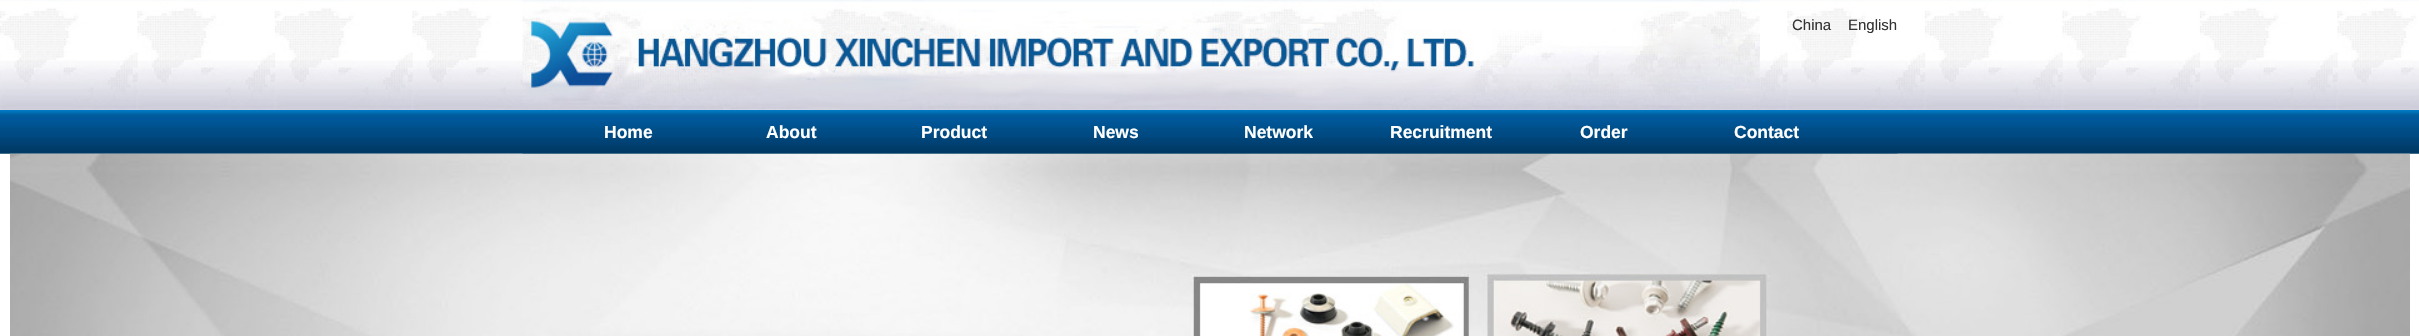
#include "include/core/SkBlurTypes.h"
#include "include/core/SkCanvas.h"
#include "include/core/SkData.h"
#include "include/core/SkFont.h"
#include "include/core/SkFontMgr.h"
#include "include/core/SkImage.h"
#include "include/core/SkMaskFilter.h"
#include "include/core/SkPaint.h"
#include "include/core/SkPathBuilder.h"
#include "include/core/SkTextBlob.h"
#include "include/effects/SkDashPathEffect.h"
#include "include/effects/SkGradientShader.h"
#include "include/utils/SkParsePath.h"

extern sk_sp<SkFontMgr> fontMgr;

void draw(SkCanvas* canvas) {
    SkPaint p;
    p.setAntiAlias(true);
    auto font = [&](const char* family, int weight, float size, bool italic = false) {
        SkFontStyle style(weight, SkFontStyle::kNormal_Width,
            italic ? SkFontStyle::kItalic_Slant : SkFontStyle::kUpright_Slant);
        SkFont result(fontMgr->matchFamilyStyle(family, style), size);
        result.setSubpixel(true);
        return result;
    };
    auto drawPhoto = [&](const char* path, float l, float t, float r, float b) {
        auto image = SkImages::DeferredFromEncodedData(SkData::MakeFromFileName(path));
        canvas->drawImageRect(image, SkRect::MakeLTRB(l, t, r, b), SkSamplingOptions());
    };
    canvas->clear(0xFFFFFFFF);
    drawPhoto("media/1.png", 0, 0, 2419, 110);
    drawPhoto("media/2.png", 522, 0, 1760, 110);
    auto font1 = font("Liberation Sans", 400, 15);
    p.setColor(0xFF333333);
    canvas->drawString("China", 1792, 30, font1, p);
    canvas->drawString("English", 1848, 30, font1, p);
    drawPhoto("media/3.png", 0, 110, 2419, 154);
    drawPhoto("media/4.png", 522, 153, 1898, 154);
    auto font2 = font("Liberation Sans", 700, 17.5f);
    p.setColor(0xFFFFFFFF);
    {
        const struct { const char* s; float x, y; } items[] = {
            {"Home", 604, 138},
            {"About", 766, 138},
            {"Product", 921, 138},
            {"News", 1093, 138},
            {"Network", 1244, 138},
            {"Recruitment", 1390, 138},
            {"Order", 1580, 138},
            {"Contact", 1734, 138},
        };
        for (auto [s, x, y] : items) {
            canvas->drawString(s, x, y, font2, p);
        }
    }
    drawPhoto("media/5.png", 10, 153, 2410, 336);
}
